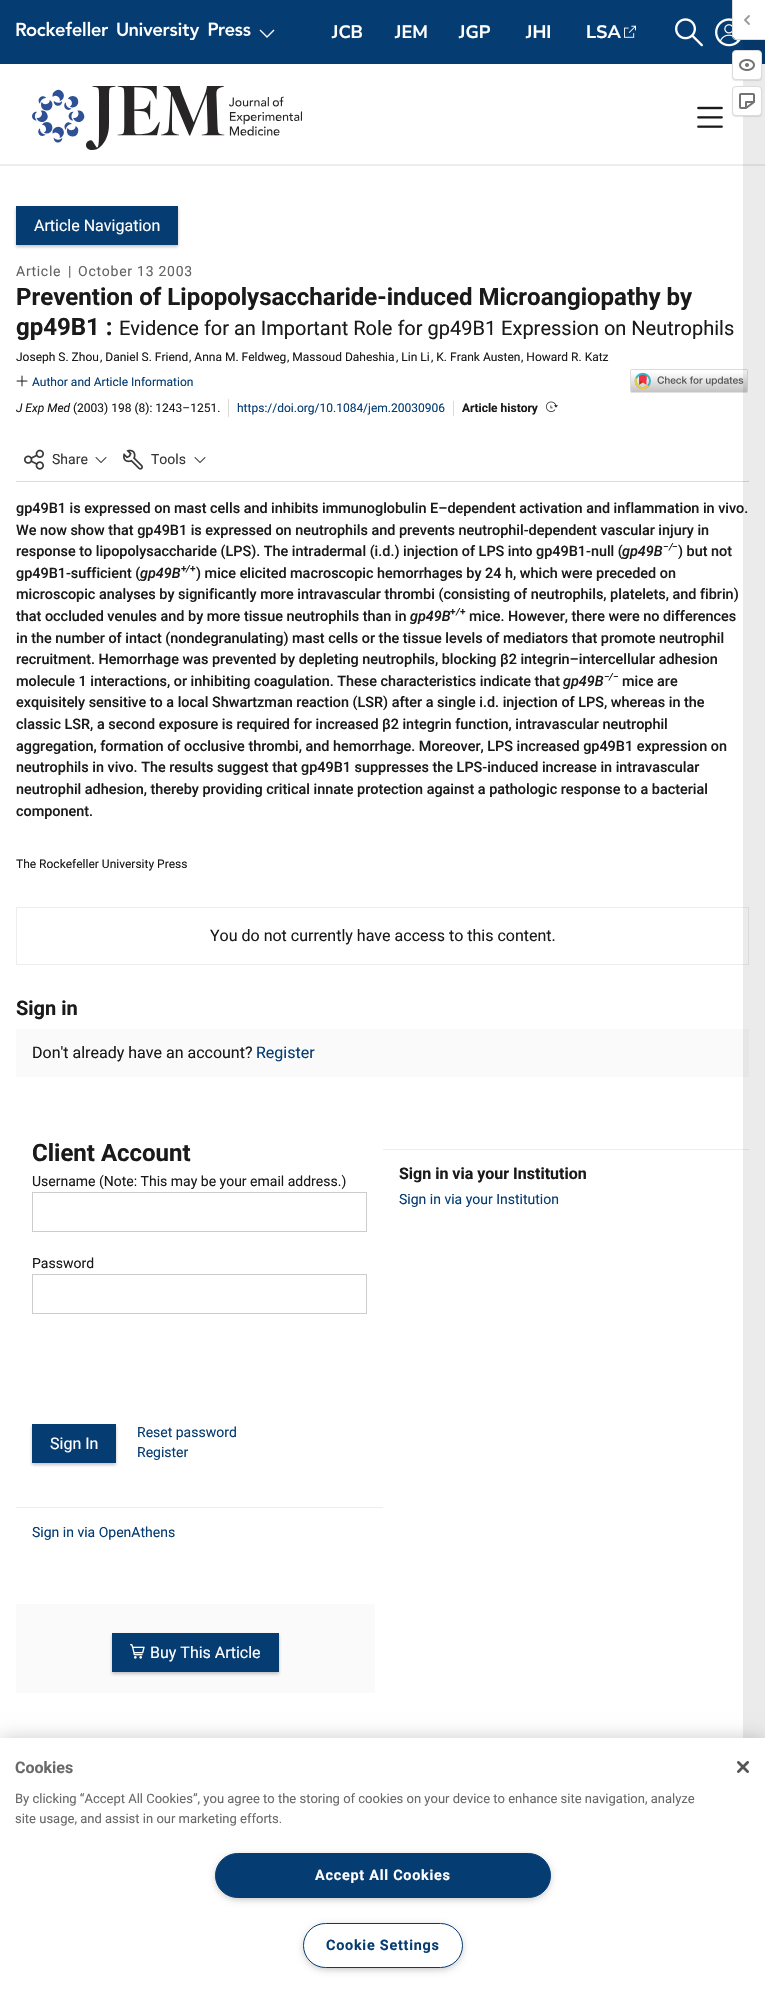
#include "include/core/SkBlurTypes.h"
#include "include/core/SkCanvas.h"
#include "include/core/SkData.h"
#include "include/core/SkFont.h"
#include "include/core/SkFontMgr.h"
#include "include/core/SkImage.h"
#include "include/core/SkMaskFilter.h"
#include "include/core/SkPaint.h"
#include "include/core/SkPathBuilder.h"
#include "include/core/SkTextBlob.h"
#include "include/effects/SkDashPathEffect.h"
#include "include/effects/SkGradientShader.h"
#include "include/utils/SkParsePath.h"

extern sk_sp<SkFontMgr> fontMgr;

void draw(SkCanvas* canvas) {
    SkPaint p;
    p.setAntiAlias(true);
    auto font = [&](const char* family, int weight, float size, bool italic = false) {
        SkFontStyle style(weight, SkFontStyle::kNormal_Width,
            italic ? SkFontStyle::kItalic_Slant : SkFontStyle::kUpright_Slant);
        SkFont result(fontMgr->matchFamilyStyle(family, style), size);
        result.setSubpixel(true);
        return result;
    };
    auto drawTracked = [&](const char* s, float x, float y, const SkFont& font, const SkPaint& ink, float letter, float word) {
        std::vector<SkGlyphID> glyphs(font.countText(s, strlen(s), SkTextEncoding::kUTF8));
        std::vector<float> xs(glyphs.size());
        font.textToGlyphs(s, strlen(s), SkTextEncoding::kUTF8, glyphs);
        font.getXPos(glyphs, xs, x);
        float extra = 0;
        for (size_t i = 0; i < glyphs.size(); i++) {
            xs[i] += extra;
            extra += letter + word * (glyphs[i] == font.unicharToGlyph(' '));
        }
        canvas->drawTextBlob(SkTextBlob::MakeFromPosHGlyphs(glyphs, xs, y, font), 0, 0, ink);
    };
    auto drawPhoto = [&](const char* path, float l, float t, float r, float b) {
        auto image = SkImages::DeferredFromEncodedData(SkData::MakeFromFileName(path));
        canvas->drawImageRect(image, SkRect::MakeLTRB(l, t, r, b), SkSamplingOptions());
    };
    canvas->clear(0xFFFFFFFF);
    p.setColor(0xFF053C72);
    canvas->drawRect(SkRect::MakeLTRB(0, 0, 765, 64), p);
    drawPhoto("media/1.png", 16, 21, 251, 40);
    drawPhoto("media/2.png", 259, 29, 275, 38);
    auto font1 = font("Nunito Sans", 700, 18);
    p.setColor(0xFFFFFFFF);
    {
        const struct { const char* s; float x, y; } items[] = {
            {"JCB", 332, 38},
            {"JEM", 395, 38},
            {"JGP", 459, 38},
            {"JHI", 526, 38},
            {"LSA", 586, 38},
        };
        for (auto [s, x, y] : items) {
            canvas->drawString(s, x, y, font1, p);
        }
    }
    drawPhoto("media/3.png", 624, 25, 636, 38);
    drawPhoto("media/4.png", 675, 18, 703, 47);
    drawPhoto("media/5.png", 715, 18, 741, 47);
    p.setColor(0xFFEDEDED);
    canvas->drawRect(SkRect::MakeLTRB(0, 164, 765, 166), p);
    drawPhoto("media/6.png", 32, 86, 302, 150);
    drawPhoto("media/7.png", 697, 106, 723, 128);
    drawPhoto("media/12.png", 630, 369, 748, 393);
    p.setColor(0xFFDBDBDB);
    canvas->drawRect(SkRect::MakeLTRB(16, 481, 749, 482), p);
    p.setStyle(SkPaint::kStroke_Style);
    p.setStrokeWidth(1);
    p.setColor(0xFFEDEDED);
    canvas->drawRect(SkRect::MakeLTRB(16.5f, 907.5f, 748.5f, 964.5f), p);
    p.setStyle(SkPaint::kFill_Style);
    {
        const struct { float l, t, r, b; SkColor color; } items[] = {
            {16, 1029, 749, 1077, 0xFFFAFAFA},
            {383, 1149, 749, 1150, 0xFFEDEDED},
            {743, 40, 765, 1738, 0x14000000},
        };
        for (auto [l, t, r, b, color] : items) {
            p.setColor(color);
            canvas->drawRect(SkRect::MakeLTRB(l, t, r, b), p);
        }
    }
    p.setColor(0xFFFFFFFF);
    canvas->drawPath(SkPathBuilder().moveTo(733, 0).lineTo(765, 0).lineTo(765, 39).lineTo(736, 39).cubicTo(734.5f, 39, 733, 37.5f, 733, 36).close().detach(), p);
    p.setColor(0xFFDBDBDB);
    canvas->drawPath(SkPathBuilder(SkPathFillType::kEvenOdd).moveTo(732, 0).lineTo(765, 0).lineTo(765, 40).lineTo(736, 40).cubicTo(734, 40, 732, 38, 732, 36).close().moveTo(733, 0).lineTo(765, 0).lineTo(765, 39).lineTo(736, 39).cubicTo(734, 39, 733, 38, 733, 36).close().detach(), p);
    drawPhoto("media/8.png", 744, 15, 750, 25);
    p.setColor(0x1A000000);
    p.setMaskFilter(SkMaskFilter::MakeBlur(kNormal_SkBlurStyle, 0.5f));
    canvas->drawRoundRect(SkRect::MakeLTRB(732, 51, 762, 81), 4, 4, p);
    p.setMaskFilter(nullptr);
    p.setColor(0xFFFFFFFF);
    canvas->drawRoundRect(SkRect::MakeLTRB(732.5f, 50.5f, 761.5f, 79.5f), 3.5f, 3.5f, p);
    p.setStyle(SkPaint::kStroke_Style);
    p.setColor(0xFFDBDBDB);
    canvas->drawRoundRect(SkRect::MakeLTRB(732.5f, 50.5f, 761.5f, 79.5f), 3.5f, 3.5f, p);
    drawPhoto("media/9.png", 739, 59, 755, 71);
    p.setStyle(SkPaint::kFill_Style);
    p.setColor(0x1A000000);
    p.setMaskFilter(SkMaskFilter::MakeBlur(kNormal_SkBlurStyle, 0.5f));
    canvas->drawRoundRect(SkRect::MakeLTRB(732, 87, 762, 117), 4, 4, p);
    p.setMaskFilter(nullptr);
    p.setColor(0xFFFFFFFF);
    canvas->drawRoundRect(SkRect::MakeLTRB(732.5f, 86.5f, 761.5f, 115.5f), 3.5f, 3.5f, p);
    p.setStyle(SkPaint::kStroke_Style);
    p.setColor(0xFFDBDBDB);
    canvas->drawRoundRect(SkRect::MakeLTRB(732.5f, 86.5f, 761.5f, 115.5f), 3.5f, 3.5f, p);
    drawPhoto("media/10.png", 739, 93, 755, 109);
    p.setStyle(SkPaint::kFill_Style);
    p.setColor(0x4D433838);
    p.setMaskFilter(SkMaskFilter::MakeBlur(kNormal_SkBlurStyle, 1.5f));
    canvas->drawRect(SkRect::MakeLTRB(16, 208, 178, 247), p);
    p.setMaskFilter(nullptr);
    p.setColor(0xFF053C72);
    canvas->drawRect(SkRect::MakeLTRB(16, 206, 178, 245), p);
    auto font2 = font("Roboto", 400, 16);
    p.setColor(0xFFFFFFFF);
    canvas->drawString("Article Navigation", 34, 231, font2, p);
    auto font3 = font("Roboto", 400, 14);
    p.setColor(0xFF646262);
    {
        const struct { const char* s; float x, y; } items[] = {
            {"Article", 16, 276},
            {"|", 68, 276},
            {"October 13 2003", 78, 276},
        };
        for (auto [s, x, y] : items) {
            drawTracked(s, x, y, font3, p, 0.75f, 0);
        }
    }
    auto font4 = font("Roboto", 700, 24);
    p.setColor(0xFF1A1A1A);
    canvas->drawString("Prevention of Lipopolysaccharide-induced Microangiopathy by", 16, 305, font4, p);
    canvas->drawString("gp49B1 :", 16, 335, font4, p);
    auto font5 = font("Roboto", 400, 20);
    canvas->drawString("Evidence for an Important Role for gp49B1 Expression on Neutrophils", 119, 335, font5, p);
    auto font6 = font("Roboto", 400, 12);
    {
        const struct { const char* s; float x, y; } items[] = {
            {"Joseph S. Zhou", 16, 361},
            {", Daniel S. Friend", 100, 361},
            {", Anna M. Feldweg", 189, 361},
            {", Massoud Daheshia", 287, 361},
            {", Lin Li", 396, 361},
            {", K. Frank Austen", 431, 361},
            {", Howard R. Katz", 521, 361},
        };
        for (auto [s, x, y] : items) {
            canvas->drawString(s, x, y, font6, p);
        }
    }
    drawPhoto("media/11.png", 16, 375, 28, 387);
    p.setColor(0xFF053C72);
    canvas->drawString("Author and Article Information", 32, 386, font6, p);
    p.setColor(0xFFDBDBDB);
    canvas->drawRect(SkRect::MakeLTRB(228, 399, 229, 417), p);
    auto font7 = font("Roboto", 400, 12, true);
    p.setColor(0xFF1A1A1A);
    canvas->drawString("J Exp Med", 16, 412, font7, p);
    canvas->drawString("(2003) 198 (8): 1243–1251.", 73, 412, font6, p);
    p.setColor(0xFFDBDBDB);
    canvas->drawRect(SkRect::MakeLTRB(453, 401, 454, 416), p);
    p.setColor(0xFF053C72);
    canvas->drawString("https://doi.org/10.1084/jem.20030906", 237, 412, font6, p);
    auto font8 = font("Roboto", 700, 12);
    p.setColor(0xFF1A1A1A);
    canvas->drawString("Article history", 462, 412, font8, p);
    drawPhoto("media/13.png", 546, 401, 558, 412);
    drawPhoto("media/14.png", 24, 449, 44, 470);
    p.setColor(0xFF383636);
    canvas->drawString("Share", 52, 464, font3, p);
    drawPhoto("media/15.png", 95, 457, 107, 463);
    drawPhoto("media/16.png", 123, 449, 143, 470);
    canvas->drawString("Tools", 151, 464, font3, p);
    drawPhoto("media/15.png", 194, 457, 206, 463);
    auto font9 = font("Roboto", 500, 14.4f);
    p.setColor(0xFF1A1A1A);
    {
        const struct { const char* s; float x, y; } items[] = {
            {"gp49B1 is expressed on mast cells and inhibits immunoglobulin E–dependent activation and inflammation in vivo.", 16, 513},
            {"We now show that gp49B1 is expressed on neutrophils and prevents neutrophil-dependent vascular injury in", 16, 535},
            {"response to lipopolysaccharide (LPS). The intradermal (i.d.) injection of LPS into gp49B1-null (", 16, 556},
        };
        for (auto [s, x, y] : items) {
            canvas->drawString(s, x, y, font9, p);
        }
    }
    auto font10 = font("Roboto", 500, 14.4f, true);
    canvas->drawString("gp49B", 622, 556, font10, p);
    auto font11 = font("Roboto", 500, 10);
    canvas->drawString("−", 663, 550, font11, p);
    auto font12 = font("Roboto", 500, 10, true);
    canvas->drawString("/", 669, 550, font12, p);
    canvas->drawString("−", 672, 550, font11, p);
    canvas->drawString(") but not", 678, 556, font9, p);
    canvas->drawString("gp49B1-sufficient (", 16, 578, font9, p);
    canvas->drawString("gp49B", 140, 578, font10, p);
    canvas->drawString("+", 181, 572, font11, p);
    canvas->drawString("/", 186, 572, font12, p);
    canvas->drawString("+", 190, 572, font11, p);
    {
        const struct { const char* s; float x, y; } items[] = {
            {") mice elicited macroscopic hemorrhages by 24 h, which were preceded on", 196, 578},
            {"microscopic analyses by significantly more intravascular thrombi (consisting of neutrophils, platelets, and fibrin)", 16, 599},
            {"that occluded venules and by more tissue neutrophils than in", 16, 621},
        };
        for (auto [s, x, y] : items) {
            canvas->drawString(s, x, y, font9, p);
        }
    }
    canvas->drawString("gp49B", 410, 621, font10, p);
    canvas->drawString("+", 450, 615, font11, p);
    canvas->drawString("/", 456, 615, font12, p);
    canvas->drawString("+", 460, 615, font11, p);
    {
        const struct { const char* s; float x, y; } items[] = {
            {"mice. However, there were no differences", 469, 621},
            {"in the number of intact (nondegranulating) mast cells or the tissue levels of mediators that promote neutrophil", 16, 643},
            {"recruitment. Hemorrhage was prevented by depleting neutrophils, blocking β2 integrin–intercellular adhesion", 16, 664},
            {"molecule 1 interactions, or inhibiting coagulation. These characteristics indicate that", 16, 686},
        };
        for (auto [s, x, y] : items) {
            canvas->drawString(s, x, y, font9, p);
        }
    }
    canvas->drawString("gp49B", 563, 686, font10, p);
    canvas->drawString("−", 604, 680, font11, p);
    canvas->drawString("/", 609, 680, font12, p);
    canvas->drawString("−", 613, 680, font11, p);
    {
        const struct { const char* s; float x, y; } items[] = {
            {"mice are", 622, 686},
            {"exquisitely sensitive to a local Shwartzman reaction (LSR) after a single i.d. injection of LPS, whereas in the", 16, 707},
            {"classic LSR, a second exposure is required for increased β2 integrin function, intravascular neutrophil", 16, 729},
            {"aggregation, formation of occlusive thrombi, and hemorrhage. Moreover, LPS increased gp49B1 expression on", 16, 751},
            {"neutrophils in vivo. The results suggest that gp49B1 suppresses the LPS-induced increase in intravascular", 16, 772},
            {"neutrophil adhesion, thereby providing critical innate protection against a pathologic response to a bacterial", 16, 794},
            {"component.", 16, 816},
        };
        for (auto [s, x, y] : items) {
            canvas->drawString(s, x, y, font9, p);
        }
    }
    canvas->drawString("The Rockefeller University Press", 16, 868, font6, p);
    canvas->drawString("You do not currently have access to this content.", 210, 941, font2, p);
    auto font13 = font("Roboto", 700, 20);
    canvas->drawString("Sign in", 16, 1015, font13, p);
    canvas->drawString("Don't already have an account?", 32, 1058, font2, p);
    p.setColor(0xFF053C72);
    canvas->drawString("Register", 256, 1058, font2, p);
    p.setColor(0xFF1A1A1A);
    canvas->drawString("Client Account", 32, 1161, font4, p);
    canvas->drawString("Username (Note: This may be your email address.)", 32, 1186, font3, p);
    p.setStyle(SkPaint::kStroke_Style);
    p.setColor(0xFFCCCCCC);
    canvas->drawRect(SkRect::MakeLTRB(32.5f, 1192.5f, 366.5f, 1231.5f), p);
    p.setStyle(SkPaint::kFill_Style);
    p.setColor(0xFF1A1A1A);
    canvas->drawString("Password", 32, 1268, font3, p);
    p.setStyle(SkPaint::kStroke_Style);
    p.setColor(0xFFCCCCCC);
    canvas->drawRect(SkRect::MakeLTRB(32.5f, 1274.5f, 366.5f, 1313.5f), p);
    p.setStyle(SkPaint::kFill_Style);
    p.setColor(0xFF053C72);
    canvas->drawString("Reset password", 137, 1437, font3, p);
    p.setColor(0x4D433838);
    p.setMaskFilter(SkMaskFilter::MakeBlur(kNormal_SkBlurStyle, 1.5f));
    canvas->drawRect(SkRect::MakeLTRB(32, 1426, 116, 1465), p);
    p.setMaskFilter(nullptr);
    p.setColor(0xFF053C72);
    canvas->drawRect(SkRect::MakeLTRB(32, 1424, 116, 1463), p);
    p.setColor(0xFFFFFFFF);
    canvas->drawString("Sign In", 50, 1449, font2, p);
    p.setColor(0xFF053C72);
    canvas->drawString("Register", 137, 1457, font3, p);
    auto font14 = font("Roboto", 700, 16);
    p.setColor(0xFF1A1A1A);
    canvas->drawString("Sign in via your Institution", 399, 1179, font14, p);
    p.setColor(0xFF053C72);
    canvas->drawString("Sign in via your Institution", 399, 1204, font3, p);
    p.setColor(0xFFEDEDED);
    canvas->drawRect(SkRect::MakeLTRB(16, 1507, 383, 1508), p);
    p.setColor(0xFF053C72);
    canvas->drawString("Sign in via OpenAthens", 32, 1537, font3, p);
    p.setColor(0xFFFAFAFA);
    canvas->drawRect(SkRect::MakeLTRB(16, 1604, 375, 1693), p);
    p.setColor(0x4D433838);
    p.setMaskFilter(SkMaskFilter::MakeBlur(kNormal_SkBlurStyle, 1.5f));
    canvas->drawRect(SkRect::MakeLTRB(112, 1635, 279, 1674), p);
    p.setMaskFilter(nullptr);
    p.setColor(0xFF053C72);
    canvas->drawRect(SkRect::MakeLTRB(112, 1633, 279, 1672), p);
    drawPhoto("media/17.png", 130, 1644, 145, 1659);
    p.setColor(0xFFFFFFFF);
    canvas->drawString("Buy This Article", 150, 1658, font2, p);
    p.setColor(0x33000000);
    p.setMaskFilter(SkMaskFilter::MakeBlur(kNormal_SkBlurStyle, 9));
    canvas->drawRect(SkRect::MakeLTRB(0, 1738, 765, 1998), p);
    p.setMaskFilter(nullptr);
    p.setColor(0xFFFFFFFF);
    canvas->drawRect(SkRect::MakeLTRB(0, 1738, 765, 1998), p);
    p.setColor(0xFF696969);
    canvas->drawString("Cookies", 15, 1773, font14, p);
    auto font15 = font("Roboto", 400, 13);
    canvas->drawString("By clicking “Accept All Cookies”, you agree to the storing of cookies on your device to enhance site navigation, analyze", 15, 1803, font15, p);
    canvas->drawString("site usage, and assist in our marketing efforts.", 15, 1823, font15, p);
    p.setColor(0xFF999999);
    p.setMaskFilter(SkMaskFilter::MakeBlur(kNormal_SkBlurStyle, 5));
    canvas->drawRoundRect(SkRect::MakeLTRB(218, 1858, 548, 1897), 19.5f, 19.5f, p);
    p.setMaskFilter(nullptr);
    p.setColor(0xFF053C72);
    canvas->drawRoundRect(SkRect::MakeLTRB(215.5f, 1853.5f, 550.5f, 1897.5f), 22, 22, p);
    p.setStyle(SkPaint::kStroke_Style);
    canvas->drawRoundRect(SkRect::MakeLTRB(215.5f, 1853.5f, 550.5f, 1897.5f), 22, 22, p);
    auto font16 = font("Roboto", 700, 14.4f);
    p.setStyle(SkPaint::kFill_Style);
    p.setColor(0xFFFFFFFF);
    drawTracked("Accept All Cookies", 315, 1880, font16, p, 0.75f, 0);
    p.setColor(0xFF999999);
    p.setMaskFilter(SkMaskFilter::MakeBlur(kNormal_SkBlurStyle, 5));
    canvas->drawRoundRect(SkRect::MakeLTRB(306, 1928, 460, 1967), 19.5f, 19.5f, p);
    p.setMaskFilter(nullptr);
    p.setColor(0xFFFFFFFF);
    canvas->drawRoundRect(SkRect::MakeLTRB(303.5f, 1923.5f, 462.5f, 1967.5f), 22, 22, p);
    p.setStyle(SkPaint::kStroke_Style);
    p.setColor(0xFF053C72);
    canvas->drawRoundRect(SkRect::MakeLTRB(303.5f, 1923.5f, 462.5f, 1967.5f), 22, 22, p);
    p.setStyle(SkPaint::kFill_Style);
    drawTracked("Cookie Settings", 326, 1950, font16, p, 0.75f, 0);
    drawPhoto("media/18.png", 737, 1761, 749, 1773);
}
